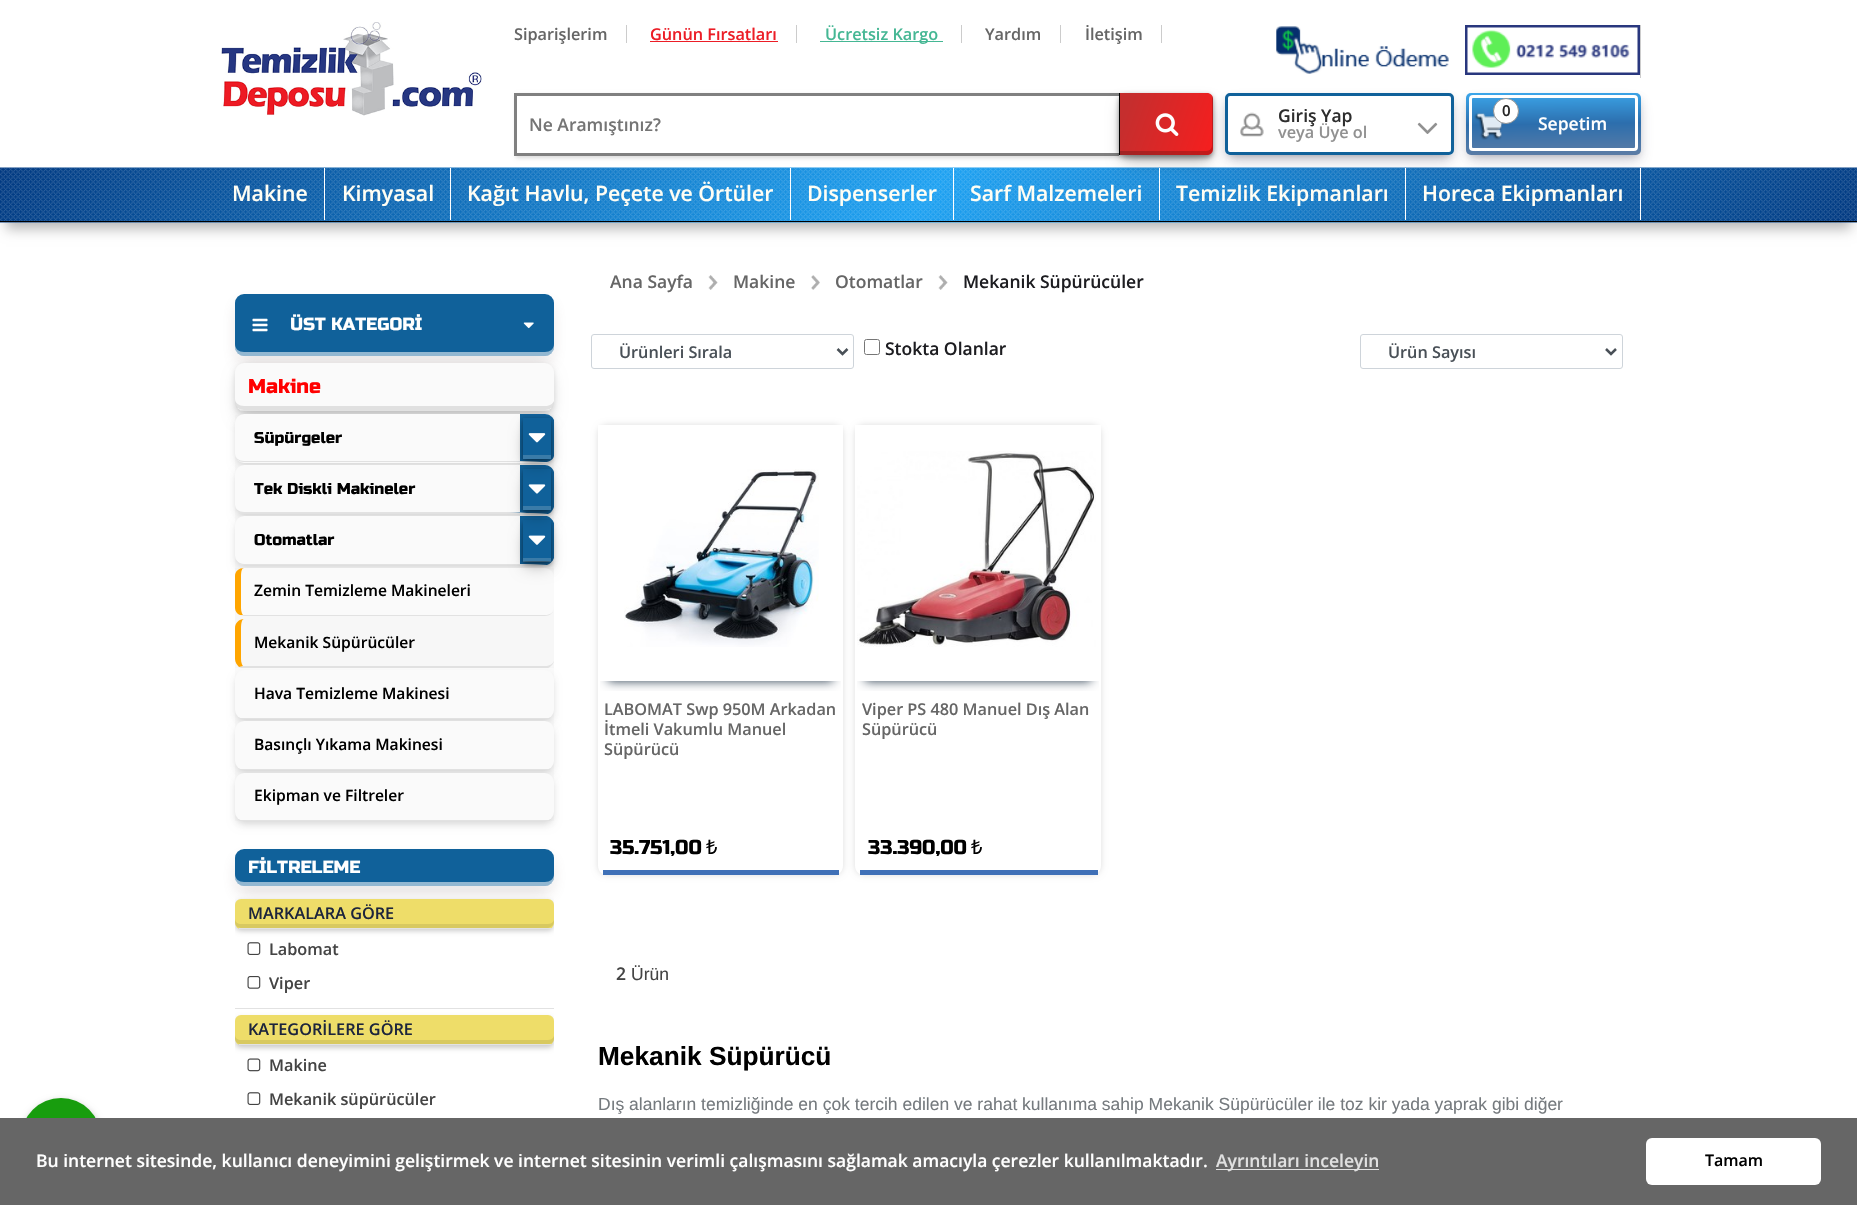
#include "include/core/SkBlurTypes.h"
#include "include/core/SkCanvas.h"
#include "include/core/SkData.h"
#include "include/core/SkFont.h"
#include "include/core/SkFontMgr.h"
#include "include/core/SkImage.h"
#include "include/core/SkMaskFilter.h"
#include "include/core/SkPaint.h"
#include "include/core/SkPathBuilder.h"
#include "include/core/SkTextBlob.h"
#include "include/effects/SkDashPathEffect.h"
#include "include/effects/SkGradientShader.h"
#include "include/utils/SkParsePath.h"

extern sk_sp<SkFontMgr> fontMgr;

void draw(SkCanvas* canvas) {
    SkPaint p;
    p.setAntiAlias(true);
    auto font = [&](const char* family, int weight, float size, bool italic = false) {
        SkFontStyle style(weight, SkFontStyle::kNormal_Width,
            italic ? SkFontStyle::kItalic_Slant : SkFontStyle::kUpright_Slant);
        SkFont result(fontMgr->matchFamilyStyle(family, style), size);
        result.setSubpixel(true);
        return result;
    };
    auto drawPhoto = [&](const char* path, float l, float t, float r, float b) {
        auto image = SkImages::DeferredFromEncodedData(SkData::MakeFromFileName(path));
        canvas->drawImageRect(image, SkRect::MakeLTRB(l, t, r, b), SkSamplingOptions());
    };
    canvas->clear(0xFFFFFFFF);
    drawPhoto("media/1.png", 221, 22, 482, 116);
    p.setColor(0xFFCCCCCC);
    canvas->drawRect(SkRect::MakeLTRB(626, 25, 627, 43), p);
    auto font1 = font("Open Sans", 600, 16.25f);
    p.setColor(0xFF666666);
    canvas->drawString("Siparişlerim", 514, 40, font1, p);
    p.setColor(0xFFCCCCCC);
    canvas->drawRect(SkRect::MakeLTRB(796, 25, 797, 43), p);
    p.setColor(0xFFEC1D26);
    canvas->drawString("Günün Fırsatları", 650, 40, font1, p);
    {
        const struct { float l, t, r, b; SkColor color; } items[] = {
            {650, 41, 778, 42, 0xFFEC1D26},
            {961, 25, 962, 43, 0xFFCCCCCC},
            {820, 41, 943, 42, 0xFF45B794},
        };
        for (auto [l, t, r, b, color] : items) {
            p.setColor(color);
            canvas->drawRect(SkRect::MakeLTRB(l, t, r, b), p);
        }
    }
    canvas->drawString("Ücretsiz Kargo", 825, 40, font1, p);
    p.setColor(0xFFCCCCCC);
    canvas->drawRect(SkRect::MakeLTRB(1060, 25, 1061, 43), p);
    p.setColor(0xFF666666);
    canvas->drawString("Yardım", 985, 40, font1, p);
    p.setColor(0xFFCCCCCC);
    canvas->drawRect(SkRect::MakeLTRB(1161, 25, 1162, 43), p);
    p.setColor(0xFF666666);
    canvas->drawString("İletişim", 1085, 40, font1, p);
    drawPhoto("media/2.png", 1276, 26, 1449, 74);
    p.setColor(0xFFCCCCCC);
    canvas->drawRect(SkRect::MakeLTRB(1640, 25, 1641, 78), p);
    drawPhoto("media/3.png", 1465, 25, 1640, 75);
    p.setColor(0x26000000);
    p.setMaskFilter(SkMaskFilter::MakeBlur(kNormal_SkBlurStyle, 2));
    canvas->drawRect(SkRect::MakeLTRB(516, 95, 1121, 158), p);
    p.setMaskFilter(nullptr);
    {
        const struct { float l, t, r, b; SkColor color; } items[] = {
            {517, 96, 1119, 153, 0xFFFFFFFF},
            {514, 93, 1119, 96, 0xFF808080},
            {514, 153, 1119, 156, 0xFF808080},
            {514, 93, 517, 155, 0xFF808080},
        };
        for (auto [l, t, r, b, color] : items) {
            p.setColor(color);
            canvas->drawRect(SkRect::MakeLTRB(l, t, r, b), p);
        }
    }
    auto font2 = font("Open Sans", 600, 17.5f);
    p.setColor(0xFF757575);
    canvas->drawString("Ne Aramıştınız?", 529, 131, font2, p);
    p.setColor(0x47000000);
    p.setMaskFilter(SkMaskFilter::MakeBlur(kNormal_SkBlurStyle, 6));
    canvas->drawRect(SkRect::MakeLTRB(6, 186, 1851, 229), p);
    p.setMaskFilter(nullptr);
    drawPhoto("media/8.png", 0, 167, 1857, 223);
    p.setColor(0x4D000000);
    p.setMaskFilter(SkMaskFilter::MakeBlur(kNormal_SkBlurStyle, 8));
    canvas->drawRoundRect(SkRect::MakeLTRB(1123, 105, 1209, 160), 2.5f, 2.5f, p);
    p.setMaskFilter(nullptr);
    p.setColor(0x66000000);
    p.setMaskFilter(SkMaskFilter::MakeBlur(kNormal_SkBlurStyle, 2.5f));
    canvas->drawRoundRect(SkRect::MakeLTRB(1119, 95, 1213, 158), 6, 6, p);
    p.setMaskFilter(nullptr);
    {
        const SkColor colors[] = {0xFFC52E2E, 0xFFF71E1E};
        const float stops[] = {0.11f, 1};
        const SkPoint ends[] = {{1115, 106}, {1217, 142}};
        p.setShader(SkGradientShader::MakeLinear(ends, colors, stops, 2, SkTileMode::kClamp));
        p.setAlpha(255);
    }
    canvas->drawPath(SkPathBuilder().moveTo(1120, 93).lineTo(1207, 93).cubicTo(1210.5f, 93, 1213, 95.5f, 1213, 99).lineTo(1213, 149).cubicTo(1213, 152.5f, 1210.5f, 155, 1207, 155).lineTo(1120, 155).close().detach(), p);
    p.setShader(nullptr);
    p.setColor(0x33000000);
    canvas->drawPath(SkPathBuilder().moveTo(1120, 151).lineTo(1120, 155).lineTo(1207, 155).cubicTo(1210, 155, 1213, 152, 1213, 149).lineTo(1213, 99).cubicTo(1213, 98, 1213, 97, 1212, 96).lineTo(1212, 145).cubicTo(1212, 148, 1210, 151, 1206, 151).close().detach(), p);
    p.setColor(0xFF000000);
    canvas->drawRect(SkRect::MakeLTRB(1119, 93, 1120, 155), p);
    drawPhoto("media/4.png", 1155, 113, 1179, 136);
    canvas->save();
    canvas->clipPath(SkPathBuilder(SkPathFillType::kEvenOdd).moveTo(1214, 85).lineTo(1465, 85).lineTo(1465, 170).lineTo(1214, 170).close().moveTo(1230, 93).lineTo(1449, 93).cubicTo(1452, 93, 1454, 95, 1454, 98).lineTo(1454, 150).cubicTo(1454, 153, 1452, 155, 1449, 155).lineTo(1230, 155).cubicTo(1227, 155, 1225, 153, 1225, 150).lineTo(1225, 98).cubicTo(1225, 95, 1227, 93, 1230, 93).close().detach(), true);
    p.setColor(0x4D000000);
    p.setMaskFilter(SkMaskFilter::MakeBlur(kNormal_SkBlurStyle, 4.5f));
    canvas->drawRoundRect(SkRect::MakeLTRB(1229, 100, 1450, 155), 1, 1, p);
    p.setMaskFilter(nullptr);
    canvas->restore();
    canvas->save();
    canvas->clipPath(SkPathBuilder(SkPathFillType::kEvenOdd).moveTo(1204, 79).lineTo(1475, 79).lineTo(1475, 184).lineTo(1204, 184).close().moveTo(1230, 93).lineTo(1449, 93).cubicTo(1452, 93, 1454, 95, 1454, 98).lineTo(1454, 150).cubicTo(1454, 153, 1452, 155, 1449, 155).lineTo(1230, 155).cubicTo(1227, 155, 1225, 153, 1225, 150).lineTo(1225, 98).cubicTo(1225, 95, 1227, 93, 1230, 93).close().detach(), true);
    p.setColor(0x4032325D);
    p.setMaskFilter(SkMaskFilter::MakeBlur(kNormal_SkBlurStyle, 7.5f));
    canvas->drawRoundRect(SkRect::MakeLTRB(1228, 103, 1451, 160), 2.5f, 2.5f, p);
    p.setMaskFilter(nullptr);
    canvas->restore();
    p.setStyle(SkPaint::kStroke_Style);
    p.setStrokeWidth(3);
    p.setColor(0xFF10619A);
    canvas->drawRoundRect(SkRect::MakeLTRB(1226.5f, 94.5f, 1452.5f, 153.5f), 3.5f, 3.5f, p);
    drawPhoto("media/5.png", 1240, 112, 1264, 137);
    p.setStyle(SkPaint::kFill_Style);
    p.setColor(0xFF2D2D2D);
    canvas->drawString("Giriş Yap", 1278, 122, font2, p);
    drawPhoto("media/6.png", 1417, 122, 1438, 134);
    p.setColor(0xFF919191);
    canvas->drawString("veya Üye ol", 1278, 138, font1, p);
    p.setColor(0x42000000);
    p.setMaskFilter(SkMaskFilter::MakeBlur(kNormal_SkBlurStyle, 4.5f));
    canvas->drawRoundRect(SkRect::MakeLTRB(1470, 100, 1638, 155), 1, 1, p);
    p.setMaskFilter(nullptr);
    p.setColor(0x3632325D);
    p.setMaskFilter(SkMaskFilter::MakeBlur(kNormal_SkBlurStyle, 7.5f));
    canvas->drawRoundRect(SkRect::MakeLTRB(1469, 103, 1639, 160), 2.5f, 2.5f, p);
    p.setMaskFilter(nullptr);
    {
        const SkColor colors[] = {0xFF3CA8EC, 0xFF2C6EAD, 0xFF5E7DA5};
        const float stops[] = {0, 0.5f, 1};
        const SkPoint ends[] = {{1553, 91}, {1554, 157}};
        p.setShader(SkGradientShader::MakeLinear(ends, colors, stops, 3, SkTileMode::kClamp));
        p.setAlpha(255);
    }
    canvas->drawRoundRect(SkRect::MakeLTRB(1466, 93, 1641, 155), 5, 5, p);
    drawPhoto("media/7.png", 1474, 113, 1503, 140);
    p.setShader(nullptr);
    p.setColor(0xFFFFFFFF);
    canvas->drawCircle(1506, 111, 12.5f, p);
    p.setStyle(SkPaint::kStroke_Style);
    p.setStrokeWidth(1);
    p.setColor(0xFF939393);
    canvas->drawCircle(1506, 111, 12.5f, p);
    p.setStrokeWidth(3);
    p.setColor(0xFFFFFFFF);
    canvas->drawRoundRect(SkRect::MakeLTRB(1470.5f, 96.5f, 1636.5f, 149.5f), 2.5f, 2.5f, p);
    auto font3 = font("Open Sans", 600, 15);
    p.setStyle(SkPaint::kFill_Style);
    p.setColor(0xFF262626);
    canvas->drawString("0", 1502, 116, font3, p);
    p.setColor(0xFFFFFFFF);
    canvas->drawString("Sepetim", 1538, 130, font2, p);
    p.setColor(0xFF000000);
    canvas->drawRect(SkRect::MakeLTRB(0, 221, 1857, 222), p);
    p.setColor(0xFFFFFFFF);
    canvas->drawRect(SkRect::MakeLTRB(324, 168, 325, 220), p);
    auto font4 = font("Open Sans", 600, 21.25f);
    p.setColor(0xFFFFFEF4);
    canvas->drawString("Makine", 232, 201, font4, p);
    p.setColor(0xFFFFFFFF);
    canvas->drawRect(SkRect::MakeLTRB(450, 168, 451, 220), p);
    p.setColor(0xFFFFFEF4);
    canvas->drawString("Kimyasal", 342, 201, font4, p);
    p.setColor(0xFFFFFFFF);
    canvas->drawRect(SkRect::MakeLTRB(790, 168, 791, 220), p);
    p.setColor(0xFFFFFEF4);
    canvas->drawString("Kağıt Havlu, Peçete ve Örtüler", 467, 201, font4, p);
    p.setColor(0xFFFFFFFF);
    canvas->drawRect(SkRect::MakeLTRB(953, 168, 954, 220), p);
    p.setColor(0xFFFFFEF4);
    canvas->drawString("Dispenserler", 807, 201, font4, p);
    p.setColor(0xFFFFFFFF);
    canvas->drawRect(SkRect::MakeLTRB(1159, 168, 1160, 220), p);
    p.setColor(0xFFFFFEF4);
    canvas->drawString("Sarf Malzemeleri", 970, 201, font4, p);
    p.setColor(0xFFFFFFFF);
    canvas->drawRect(SkRect::MakeLTRB(1405, 168, 1406, 220), p);
    p.setColor(0xFFFFFEF4);
    canvas->drawString("Temizlik Ekipmanları", 1176, 201, font4, p);
    p.setColor(0xFFFFFFFF);
    canvas->drawRect(SkRect::MakeLTRB(1640, 168, 1641, 220), p);
    p.setColor(0xFFFFFEF4);
    canvas->drawString("Horeca Ekipmanları", 1422, 201, font4, p);
    p.setColor(0x4D806C6C);
    p.setMaskFilter(SkMaskFilter::MakeBlur(kNormal_SkBlurStyle, 8));
    canvas->drawRoundRect(SkRect::MakeLTRB(239, 306, 550, 361), 5, 5, p);
    p.setMaskFilter(nullptr);
    p.setColor(0x66FFFFFF);
    p.setMaskFilter(SkMaskFilter::MakeBlur(kNormal_SkBlurStyle, 2.5f));
    canvas->drawRoundRect(SkRect::MakeLTRB(235, 296, 554, 359), 9, 9, p);
    p.setMaskFilter(nullptr);
    p.setColor(0xFF10619A);
    canvas->drawRoundRect(SkRect::MakeLTRB(235, 294, 554, 356), 9, 9, p);
    p.setColor(0x8AFFFFFF);
    canvas->drawPath(SkPathBuilder().moveTo(235, 344).lineTo(235, 347).cubicTo(235, 352, 239, 356, 244, 356).lineTo(545, 356).cubicTo(550, 356, 554, 352, 554, 347).lineTo(554, 344).cubicTo(554, 349, 550, 352, 545, 352).lineTo(244, 352).cubicTo(239, 352, 235, 349, 235, 344).close().detach(), p);
    drawPhoto("media/9.png", 252, 318, 268, 332);
    auto font5 = font("Russo One", 400, 17.5f);
    p.setColor(0xFFFFFFFF);
    canvas->drawString("ÜST KATEGORİ", 290, 330, font5, p);
    drawPhoto("media/10.png", 523, 322, 534, 329);
    p.setColor(0x33000000);
    p.setMaskFilter(SkMaskFilter::MakeBlur(kNormal_SkBlurStyle, 8));
    canvas->drawRoundRect(SkRect::MakeLTRB(239, 375, 550, 416), 5, 5, p);
    p.setMaskFilter(nullptr);
    p.setColor(0x1A000000);
    p.setMaskFilter(SkMaskFilter::MakeBlur(kNormal_SkBlurStyle, 2.5f));
    canvas->drawRoundRect(SkRect::MakeLTRB(235, 365, 554, 414), 9, 9, p);
    p.setMaskFilter(nullptr);
    p.setColor(0xFFFAFAFA);
    canvas->drawRoundRect(SkRect::MakeLTRB(235, 363, 554, 411), 9, 9, p);
    p.setColor(0x1A000000);
    canvas->drawPath(SkPathBuilder().moveTo(235, 399).lineTo(235, 402).cubicTo(235, 407, 239, 410, 244, 410).lineTo(545, 410).cubicTo(550, 410, 554, 407, 554, 402).lineTo(554, 401).cubicTo(553, 404, 549, 406, 545, 406).lineTo(244, 406).cubicTo(239, 406, 235, 403, 235, 399).close().detach(), p);
    p.setColor(0xFFE2E2E2);
    canvas->drawRect(SkRect::MakeLTRB(240, 410, 550, 411), p);
    auto font6 = font("Russo One", 400, 20);
    p.setColor(0xFFFF0000);
    canvas->drawString("Makine", 248, 393, font6, p);
    p.setColor(0x1ADCDCDC);
    canvas->drawRect(SkRect::MakeLTRB(235, 415, 554, 821), p);
    p.setColor(0x0F000000);
    p.setMaskFilter(SkMaskFilter::MakeBlur(kNormal_SkBlurStyle, 2.5f));
    canvas->drawRoundRect(SkRect::MakeLTRB(236, 418, 553, 464), 8, 8, p);
    p.setMaskFilter(nullptr);
    p.setColor(0x1A000000);
    p.setMaskFilter(SkMaskFilter::MakeBlur(kNormal_SkBlurStyle, 4));
    canvas->drawRoundRect(SkRect::MakeLTRB(236, 420, 553, 466), 8, 8, p);
    p.setMaskFilter(nullptr);
    p.setColor(0xFFFAFAFA);
    canvas->drawRoundRect(SkRect::MakeLTRB(235, 414, 554, 463), 9, 9, p);
    p.setColor(0xFF10619A);
    canvas->drawPath(SkPathBuilder().moveTo(513, 461).lineTo(520, 461).lineTo(520, 414).lineTo(545, 414).cubicTo(549, 414, 553, 417, 554, 420).lineTo(554, 456).cubicTo(553, 460, 549, 462, 545, 462).close().detach(), p);
    p.setColor(0xFFE2E2E2);
    canvas->drawPath(SkPathBuilder().moveTo(540, 462).lineTo(244, 462).cubicTo(239, 462, 235, 459, 235, 454).cubicTo(235, 458, 239, 461, 244, 461).lineTo(513, 461).close().detach(), p);
    auto font7 = font("Russo One", 400, 15.6f);
    p.setColor(0xFF000000);
    canvas->drawString("Süpürgeler", 254, 443, font7, p);
    p.setColor(0x0F000000);
    p.setMaskFilter(SkMaskFilter::MakeBlur(kNormal_SkBlurStyle, 2.5f));
    canvas->drawRoundRect(SkRect::MakeLTRB(236, 469, 553, 515), 8, 8, p);
    p.setMaskFilter(nullptr);
    p.setColor(0x1A000000);
    p.setMaskFilter(SkMaskFilter::MakeBlur(kNormal_SkBlurStyle, 4));
    canvas->drawRoundRect(SkRect::MakeLTRB(236, 471, 553, 518), 8, 8, p);
    p.setMaskFilter(nullptr);
    p.setColor(0xFFFAFAFA);
    canvas->drawRoundRect(SkRect::MakeLTRB(235, 465, 554, 514), 9, 9, p);
    p.setColor(0xFF10619A);
    canvas->drawPath(SkPathBuilder().moveTo(545, 465).lineTo(520, 465).lineTo(520, 512).lineTo(506, 512).lineTo(548, 514).cubicTo(551, 513, 553, 510, 554, 507).lineTo(554, 472).cubicTo(553, 468, 549, 465, 545, 465).close().detach(), p);
    canvas->save();
    canvas->clipPath(SkPathBuilder(SkPathFillType::kEvenOdd).moveTo(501, 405).lineTo(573, 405).lineTo(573, 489).lineTo(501, 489).close().moveTo(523, 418).lineTo(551, 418).lineTo(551, 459).lineTo(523, 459).close().detach(), true);
    p.setColor(0x4D000000);
    p.setMaskFilter(SkMaskFilter::MakeBlur(kNormal_SkBlurStyle, 8));
    canvas->drawRect(SkRect::MakeLTRB(526, 430, 548, 464), p);
    p.setMaskFilter(nullptr);
    canvas->restore();
    canvas->save();
    canvas->clipPath(SkPathBuilder(SkPathFillType::kEvenOdd).moveTo(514, 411).lineTo(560, 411).lineTo(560, 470).lineTo(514, 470).close().moveTo(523, 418).lineTo(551, 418).lineTo(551, 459).lineTo(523, 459).close().detach(), true);
    p.setColor(0x66000000);
    p.setMaskFilter(SkMaskFilter::MakeBlur(kNormal_SkBlurStyle, 2.5f));
    canvas->drawRect(SkRect::MakeLTRB(523, 420, 551, 461), p);
    p.setMaskFilter(nullptr);
    canvas->restore();
    p.setColor(0x33E1E1E1);
    canvas->drawRect(SkRect::MakeLTRB(523, 455, 551, 459), p);
    drawPhoto("media/11.png", 528, 433, 546, 443);
    p.setColor(0xFFE2E2E2);
    canvas->drawPath(SkPathBuilder().moveTo(242, 514).cubicTo(238, 513, 235, 509, 235, 505).cubicTo(235, 509, 239, 512, 244, 512).lineTo(506, 512).lineTo(548, 514).close().detach(), p);
    p.setColor(0xFF000000);
    canvas->drawString("Tek Diskli Makineler", 254, 494, font7, p);
    p.setColor(0x0F000000);
    p.setMaskFilter(SkMaskFilter::MakeBlur(kNormal_SkBlurStyle, 2.5f));
    canvas->drawRoundRect(SkRect::MakeLTRB(236, 520, 553, 566), 8, 8, p);
    p.setMaskFilter(nullptr);
    p.setColor(0x1A000000);
    p.setMaskFilter(SkMaskFilter::MakeBlur(kNormal_SkBlurStyle, 4));
    canvas->drawRoundRect(SkRect::MakeLTRB(236, 523, 553, 569), 8, 8, p);
    p.setMaskFilter(nullptr);
    p.setColor(0xFFFAFAFA);
    canvas->drawRoundRect(SkRect::MakeLTRB(235, 516, 554, 565), 9, 9, p);
    p.setColor(0xFF10619A);
    canvas->drawPath(SkPathBuilder().moveTo(520, 564).lineTo(520, 516).lineTo(547, 516).cubicTo(550, 517, 553, 520, 554, 523).lineTo(554, 558).cubicTo(553, 561, 550, 564, 547, 565).close().detach(), p);
    canvas->save();
    canvas->clipPath(SkPathBuilder(SkPathFillType::kEvenOdd).moveTo(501, 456).lineTo(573, 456).lineTo(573, 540).lineTo(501, 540).close().moveTo(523, 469).lineTo(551, 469).lineTo(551, 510).lineTo(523, 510).close().detach(), true);
    p.setColor(0x4D000000);
    p.setMaskFilter(SkMaskFilter::MakeBlur(kNormal_SkBlurStyle, 8));
    canvas->drawRect(SkRect::MakeLTRB(526, 481, 548, 515), p);
    p.setMaskFilter(nullptr);
    canvas->restore();
    canvas->save();
    canvas->clipPath(SkPathBuilder(SkPathFillType::kEvenOdd).moveTo(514, 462).lineTo(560, 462).lineTo(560, 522).lineTo(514, 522).close().moveTo(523, 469).lineTo(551, 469).lineTo(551, 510).lineTo(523, 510).close().detach(), true);
    p.setColor(0x66000000);
    p.setMaskFilter(SkMaskFilter::MakeBlur(kNormal_SkBlurStyle, 2.5f));
    canvas->drawRect(SkRect::MakeLTRB(523, 471, 551, 513), p);
    p.setMaskFilter(nullptr);
    canvas->restore();
    p.setColor(0xFF3A7BA8);
    canvas->drawRect(SkRect::MakeLTRB(523, 506, 551, 510), p);
    drawPhoto("media/12.png", 528, 484, 546, 494);
    p.setColor(0xFFE2E2E2);
    canvas->drawPath(SkPathBuilder().moveTo(244, 565).lineTo(547, 565).lineTo(520, 564).lineTo(244, 564).cubicTo(239, 564, 235, 560, 235, 556).cubicTo(235, 561, 239, 565, 244, 565).close().detach(), p);
    p.setColor(0xFF000000);
    canvas->drawString("Otomatlar", 254, 545, font7, p);
    p.setColor(0x1ADCDCDC);
    canvas->drawRect(SkRect::MakeLTRB(235, 568, 554, 668), p);
    p.setColor(0xFFFAFAFA);
    canvas->drawRoundRect(SkRect::MakeLTRB(235, 568, 554, 616), 9, 9, p);
    canvas->save();
    canvas->clipPath(SkPathBuilder(SkPathFillType::kEvenOdd).moveTo(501, 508).lineTo(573, 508).lineTo(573, 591).lineTo(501, 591).close().moveTo(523, 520).lineTo(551, 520).lineTo(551, 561).lineTo(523, 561).close().detach(), true);
    p.setColor(0x4D000000);
    p.setMaskFilter(SkMaskFilter::MakeBlur(kNormal_SkBlurStyle, 8));
    canvas->drawRect(SkRect::MakeLTRB(526, 533, 548, 566), p);
    p.setMaskFilter(nullptr);
    canvas->restore();
    canvas->save();
    canvas->clipPath(SkPathBuilder(SkPathFillType::kEvenOdd).moveTo(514, 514).lineTo(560, 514).lineTo(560, 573).lineTo(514, 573).close().moveTo(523, 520).lineTo(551, 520).lineTo(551, 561).lineTo(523, 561).close().detach(), true);
    p.setColor(0x66000000);
    p.setMaskFilter(SkMaskFilter::MakeBlur(kNormal_SkBlurStyle, 2.5f));
    canvas->drawRect(SkRect::MakeLTRB(523, 523, 551, 564), p);
    p.setMaskFilter(nullptr);
    canvas->restore();
    p.setColor(0x33E1E1E1);
    canvas->drawRect(SkRect::MakeLTRB(523, 558, 551, 562), p);
    drawPhoto("media/13.png", 528, 535, 546, 545);
    p.setColor(0xFFE2E2E2);
    canvas->drawPath(SkPathBuilder().moveTo(554, 610).cubicTo(553, 613, 549, 616, 545, 616).lineTo(244, 616).lineTo(240, 615).lineTo(243, 615).lineTo(545, 615).cubicTo(549, 615, 553, 613, 554, 610).close().detach(), p);
    p.setColor(0xFFFFA500);
    canvas->drawPath(SkPathBuilder().moveTo(244, 568).cubicTo(242, 568, 241, 571, 241, 576).lineTo(241, 608).cubicTo(241, 611, 242, 614, 243, 615).lineTo(240, 615).cubicTo(237, 614, 235, 611, 235, 608).lineTo(235, 576).cubicTo(235, 571, 239, 568, 244, 568).close().detach(), p);
    auto font8 = font("Open Sans", 600, 15.6f);
    p.setColor(0xFF000000);
    canvas->drawString("Zemin Temizleme Makineleri", 254, 596, font8, p);
    p.setColor(0xFFE2E2E2);
    canvas->drawPath(SkPathBuilder().moveTo(241, 668).lineTo(239, 667).lineTo(243, 666).lineTo(545, 666).cubicTo(549, 666, 553, 664, 554, 661).cubicTo(554, 663, 551, 667, 548, 668).close().detach(), p);
    p.setColor(0xFFFFA500);
    canvas->drawPath(SkPathBuilder().moveTo(244, 619).cubicTo(242, 619, 241, 623, 241, 628).lineTo(241, 659).cubicTo(241, 662, 242, 665, 243, 666).lineTo(239, 667).cubicTo(237, 665, 235, 662, 235, 659).lineTo(235, 628).cubicTo(235, 623, 239, 619, 244, 619).close().detach(), p);
    p.setColor(0xFF000000);
    canvas->drawString("Mekanik Süpürücüler", 254, 648, font8, p);
    p.setColor(0x0F000000);
    p.setMaskFilter(SkMaskFilter::MakeBlur(kNormal_SkBlurStyle, 2.5f));
    canvas->drawRoundRect(SkRect::MakeLTRB(236, 674, 553, 720), 8, 8, p);
    p.setMaskFilter(nullptr);
    p.setColor(0x1A000000);
    p.setMaskFilter(SkMaskFilter::MakeBlur(kNormal_SkBlurStyle, 4));
    canvas->drawRoundRect(SkRect::MakeLTRB(236, 676, 553, 723), 8, 8, p);
    p.setMaskFilter(nullptr);
    p.setColor(0xFFFAFAFA);
    canvas->drawRoundRect(SkRect::MakeLTRB(235, 670, 554, 719), 9, 9, p);
    p.setColor(0xFFE2E2E2);
    canvas->drawRect(SkRect::MakeLTRB(240, 718, 550, 719), p);
    p.setColor(0xFF000000);
    canvas->drawString("Hava Temizleme Makinesi", 254, 699, font8, p);
    p.setColor(0x0F000000);
    p.setMaskFilter(SkMaskFilter::MakeBlur(kNormal_SkBlurStyle, 2.5f));
    canvas->drawRoundRect(SkRect::MakeLTRB(236, 725, 553, 771), 8, 8, p);
    p.setMaskFilter(nullptr);
    p.setColor(0x1A000000);
    p.setMaskFilter(SkMaskFilter::MakeBlur(kNormal_SkBlurStyle, 4));
    canvas->drawRoundRect(SkRect::MakeLTRB(236, 728, 553, 774), 8, 8, p);
    p.setMaskFilter(nullptr);
    p.setColor(0xFFFAFAFA);
    canvas->drawRoundRect(SkRect::MakeLTRB(235, 721, 554, 770), 9, 9, p);
    p.setColor(0xFFE2E2E2);
    canvas->drawRect(SkRect::MakeLTRB(240, 769, 550, 770), p);
    p.setColor(0xFF000000);
    canvas->drawString("Basınçlı Yıkama Makinesi", 254, 750, font8, p);
    p.setColor(0x0F000000);
    p.setMaskFilter(SkMaskFilter::MakeBlur(kNormal_SkBlurStyle, 2.5f));
    canvas->drawRoundRect(SkRect::MakeLTRB(236, 776, 553, 823), 8, 8, p);
    p.setMaskFilter(nullptr);
    p.setColor(0x1A000000);
    p.setMaskFilter(SkMaskFilter::MakeBlur(kNormal_SkBlurStyle, 4));
    canvas->drawRoundRect(SkRect::MakeLTRB(236, 779, 553, 825), 8, 8, p);
    p.setMaskFilter(nullptr);
    p.setColor(0xFFFAFAFA);
    canvas->drawRoundRect(SkRect::MakeLTRB(235, 773, 554, 821), 9, 9, p);
    p.setColor(0xFFE2E2E2);
    canvas->drawRect(SkRect::MakeLTRB(240, 820, 550, 821), p);
    p.setColor(0xFF000000);
    canvas->drawString("Ekipman ve Filtreler", 254, 801, font8, p);
    p.setColor(0x4D806C6C);
    p.setMaskFilter(SkMaskFilter::MakeBlur(kNormal_SkBlurStyle, 8));
    canvas->drawRoundRect(SkRect::MakeLTRB(239, 861, 550, 891), 5, 5, p);
    p.setMaskFilter(nullptr);
    p.setColor(0x66FFFFFF);
    p.setMaskFilter(SkMaskFilter::MakeBlur(kNormal_SkBlurStyle, 2.5f));
    canvas->drawRoundRect(SkRect::MakeLTRB(235, 851, 554, 889), 9, 9, p);
    p.setMaskFilter(nullptr);
    p.setColor(0xFF10619A);
    canvas->drawRoundRect(SkRect::MakeLTRB(235, 849, 554, 886), 9, 9, p);
    p.setColor(0x8AFFFFFF);
    canvas->drawPath(SkPathBuilder().moveTo(235, 874).lineTo(235, 877).cubicTo(235, 882, 239, 886, 244, 886).lineTo(545, 886).cubicTo(550, 886, 554, 882, 554, 877).lineTo(554, 874).cubicTo(554, 879, 550, 882, 545, 882).lineTo(244, 882).cubicTo(239, 882, 235, 879, 235, 874).close().detach(), p);
    p.setColor(0xFFFFFFFF);
    canvas->drawString("FİLTRELEME", 248, 873, font5, p);
    canvas->save();
    canvas->clipRect(SkRect::MakeLTRB(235, 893, 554, 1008));
    p.setColor(0x33000000);
    p.setMaskFilter(SkMaskFilter::MakeBlur(kNormal_SkBlurStyle, 2.5f));
    canvas->drawRoundRect(SkRect::MakeLTRB(235, 901, 554, 931), 6, 6, p);
    p.setMaskFilter(nullptr);
    canvas->restore();
    p.setColor(0xFFEEDD69);
    canvas->drawRoundRect(SkRect::MakeLTRB(235, 899, 554, 929), 6, 6, p);
    p.setColor(0x17000000);
    canvas->drawPath(SkPathBuilder().moveTo(235, 919).cubicTo(235, 924, 235, 927, 241, 928).lineTo(548, 928).cubicTo(552, 927, 554, 925, 554, 920).cubicTo(553, 923, 550, 924, 548, 924).lineTo(241, 924).cubicTo(238, 924, 235, 922, 235, 919).close().detach(), p);
    p.setColor(0xFFE2E2E2);
    canvas->drawRect(SkRect::MakeLTRB(239, 928, 551, 929), p);
    p.setColor(0xFF1D253C);
    canvas->drawString("MARKALARA GÖRE", 248, 919, font1, p);
    drawPhoto("media/14.png", 247, 942, 261, 955);
    p.setColor(0xFF444444);
    canvas->drawString("Labomat", 269, 955, font1, p);
    drawPhoto("media/15.png", 247, 976, 261, 989);
    canvas->drawString("Viper", 269, 989, font1, p);
    p.setColor(0xFFE2E2E2);
    canvas->drawRect(SkRect::MakeLTRB(235, 1008, 554, 1009), p);
    canvas->save();
    canvas->clipRect(SkRect::MakeLTRB(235, 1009, 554, 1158));
    p.setColor(0x33000000);
    p.setMaskFilter(SkMaskFilter::MakeBlur(kNormal_SkBlurStyle, 2.5f));
    canvas->drawRoundRect(SkRect::MakeLTRB(235, 1018, 554, 1048), 6, 6, p);
    p.setMaskFilter(nullptr);
    canvas->restore();
    p.setColor(0xFFEEDD69);
    canvas->drawRoundRect(SkRect::MakeLTRB(235, 1015, 554, 1045), 6, 6, p);
    p.setColor(0x17000000);
    canvas->drawPath(SkPathBuilder().moveTo(235, 1035).lineTo(235, 1039).cubicTo(235, 1042, 238, 1044, 241, 1044).lineTo(548, 1044).cubicTo(551, 1044, 554, 1042, 554, 1039).lineTo(554, 1036).cubicTo(553, 1039, 550, 1040, 548, 1040).lineTo(241, 1040).cubicTo(238, 1040, 235, 1038, 235, 1035).close().detach(), p);
    p.setColor(0xFFE2E2E2);
    canvas->drawRect(SkRect::MakeLTRB(239, 1044, 551, 1045), p);
    p.setColor(0xFF1D253C);
    canvas->drawString("KATEGORİLERE GÖRE", 248, 1035, font1, p);
    drawPhoto("media/16.png", 247, 1058, 261, 1072);
    p.setColor(0xFF444444);
    canvas->drawString("Makine", 269, 1071, font1, p);
    drawPhoto("media/14.png", 247, 1092, 261, 1105);
    canvas->drawString("Mekanik süpürücüler", 269, 1105, font1, p);
    p.setColor(0xFF666666);
    canvas->drawString("Ana Sayfa", 610, 288, font2, p);
    drawPhoto("media/17.png", 708, 275, 718, 290);
    canvas->drawString("Makine", 733, 288, font2, p);
    drawPhoto("media/18.png", 811, 275, 820, 290);
    canvas->drawString("Otomatlar", 835, 288, font2, p);
    drawPhoto("media/17.png", 938, 275, 948, 290);
    p.setColor(0xFF1D1D21);
    canvas->drawString("Mekanik Süpürücüler", 963, 288, font2, p);
    p.setStyle(SkPaint::kStroke_Style);
    p.setStrokeWidth(1);
    p.setColor(0xFFCED4DA);
    canvas->drawRoundRect(SkRect::MakeLTRB(591.5f, 334.5f, 853.5f, 368.5f), 2.5f, 2.5f, p);
    p.setStrokeWidth(2.5f);
    p.setColor(0xFF495057);
    canvas->drawPath(SkPathBuilder().moveTo(837.5f, 349).lineTo(842.5f, 354).lineTo(847.5f, 349).detach(), p);
    p.setStyle(SkPaint::kFill_Style);
    canvas->drawString("Ürünleri Sırala", 619, 358, font1, p);
    p.setStyle(SkPaint::kStroke_Style);
    p.setStrokeWidth(1);
    p.setColor(0xFF767676);
    canvas->drawRoundRect(SkRect::MakeLTRB(864.5f, 339.5f, 879.5f, 354.5f), 2, 2, p);
    p.setStyle(SkPaint::kFill_Style);
    p.setColor(0xFF1D1D21);
    canvas->drawString("Stokta Olanlar", 885, 355, font2, p);
    p.setStyle(SkPaint::kStroke_Style);
    p.setColor(0xFFCED4DA);
    canvas->drawRoundRect(SkRect::MakeLTRB(1360.5f, 334.5f, 1622.5f, 368.5f), 2.5f, 2.5f, p);
    p.setStrokeWidth(2.5f);
    p.setColor(0xFF495057);
    canvas->drawPath(SkPathBuilder().moveTo(1606, 349).lineTo(1611, 354).lineTo(1616, 349).detach(), p);
    p.setStyle(SkPaint::kFill_Style);
    canvas->drawString("Ürün Sayısı", 1388, 358, font1, p);
    p.setColor(0xFFDDDDDD);
    p.setMaskFilter(SkMaskFilter::MakeBlur(kNormal_SkBlurStyle, 3));
    canvas->drawRoundRect(SkRect::MakeLTRB(598, 425, 843, 875), 9, 9, p);
    p.setMaskFilter(nullptr);
    p.setColor(0xFFFFFFFF);
    canvas->drawPath(SkPathBuilder().moveTo(598, 425).lineTo(843, 425).lineTo(843, 866).cubicTo(843, 871, 839, 875, 834, 875).lineTo(607, 875).cubicTo(602, 875, 598, 871, 598, 866).close().detach(), p);
    p.setColor(0xFF3F70B7);
    canvas->drawRect(SkRect::MakeLTRB(603, 870, 839, 875), p);
    canvas->save();
    canvas->clipRect(SkRect::MakeLTRB(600, 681, 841, 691));
    p.setColor(0xFF2C3E50);
    p.setMaskFilter(SkMaskFilter::MakeBlur(kNormal_SkBlurStyle, 5));
    canvas->drawRect(SkRect::MakeLTRB(608, 445, 833, 681), p);
    p.setMaskFilter(nullptr);
    canvas->restore();
    drawPhoto("media/19.png", 624, 469, 819, 647);
    p.setColor(0xFF666666);
    {
        const struct { const char* s; float x, y; } items[] = {
            {"LABOMAT Swp 950M Arkadan", 604, 715},
            {"İtmeli Vakumlu Manuel", 604, 735},
            {"Süpürücü", 604, 755},
        };
        for (auto [s, x, y] : items) {
            canvas->drawString(s, x, y, font1, p);
        }
    }
    p.setColor(0xFF000000);
    canvas->drawString("35.751,00", 610, 854, font6, p);
    auto font9 = font("Noto Sans", 400, 20);
    canvas->drawString("₺", 706, 854, font9, p);
    p.setColor(0xFFDDDDDD);
    p.setMaskFilter(SkMaskFilter::MakeBlur(kNormal_SkBlurStyle, 3));
    canvas->drawRoundRect(SkRect::MakeLTRB(855, 425, 1101, 875), 9, 9, p);
    p.setMaskFilter(nullptr);
    p.setColor(0xFFFFFFFF);
    canvas->drawPath(SkPathBuilder().moveTo(855, 425).lineTo(1101, 425).lineTo(1101, 866).cubicTo(1101, 871, 1097, 875, 1092, 875).lineTo(864, 875).cubicTo(859, 875, 855, 871, 855, 866).close().detach(), p);
    p.setColor(0xFF3F70B7);
    canvas->drawRect(SkRect::MakeLTRB(860, 870, 1098, 875), p);
    canvas->save();
    canvas->clipRect(SkRect::MakeLTRB(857, 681, 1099, 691));
    p.setColor(0xFF2C3E50);
    p.setMaskFilter(SkMaskFilter::MakeBlur(kNormal_SkBlurStyle, 5));
    canvas->drawRect(SkRect::MakeLTRB(865, 445, 1091, 681), p);
    p.setMaskFilter(nullptr);
    canvas->restore();
    drawPhoto("media/20.png", 857, 451, 1096, 647);
    p.setColor(0xFF666666);
    canvas->drawString("Viper PS 480 Manuel Dış Alan", 862, 715, font1, p);
    canvas->drawString("Süpürücü", 862, 735, font1, p);
    p.setColor(0xFF000000);
    canvas->drawString("33.390,00", 868, 854, font6, p);
    canvas->drawString("₺", 971, 854, font9, p);
    p.setColor(0xFF444444);
    canvas->drawString("2", 616, 980, font2, p);
    auto font10 = font("Liberation Sans", 400, 17.5f);
    canvas->drawString("Ürün", 631, 980, font10, p);
    auto font11 = font("Liberation Sans", 700, 26.25f);
    p.setColor(0xFF000000);
    canvas->drawString("Mekanik Süpürücü", 598, 1065, font11, p);
    p.setColor(0xFF757A7E);
    canvas->drawString("Dış alanların temizliğinde en çok tercih edilen ve rahat kullanıma sahip Mekanik Süpürücüler ile toz kir yada yaprak gibi diğer", 598, 1110, font10, p);
    p.setColor(0x33000000);
    p.setMaskFilter(SkMaskFilter::MakeBlur(kNormal_SkBlurStyle, 3));
    canvas->drawRoundRect(SkRect::MakeLTRB(20, 1100, 103, 1183), 41.5f, 41.5f, p);
    p.setMaskFilter(nullptr);
    p.setColor(0xFF189D0E);
    canvas->drawCircle(61, 1138, 40, p);
    p.setColor(0xFF666666);
    canvas->drawRect(SkRect::MakeLTRB(0, 1118, 1857, 1205), p);
    p.setColor(0xFFFFFFFF);
    canvas->drawString("Bu internet sitesinde, kullanıcı deneyimini geliştirmek ve internet sitesinin verimli çalışmasını sağlamak amacıyla çerezler kullanılmaktadır.", 36, 1167, font2, p);
    p.setColor(0xFFE0E0E0);
    canvas->drawRect(SkRect::MakeLTRB(1216, 1169, 1379, 1170), p);
    canvas->drawString("Ayrıntıları inceleyin", 1216, 1167, font2, p);
    p.setColor(0xFFFFFFFF);
    canvas->drawRoundRect(SkRect::MakeLTRB(1646, 1138, 1821, 1185), 6, 6, p);
    auto font12 = font("Open Sans", 600, 16);
    p.setColor(0xFF000000);
    canvas->drawString("Tamam", 1705, 1166, font12, p);
}
